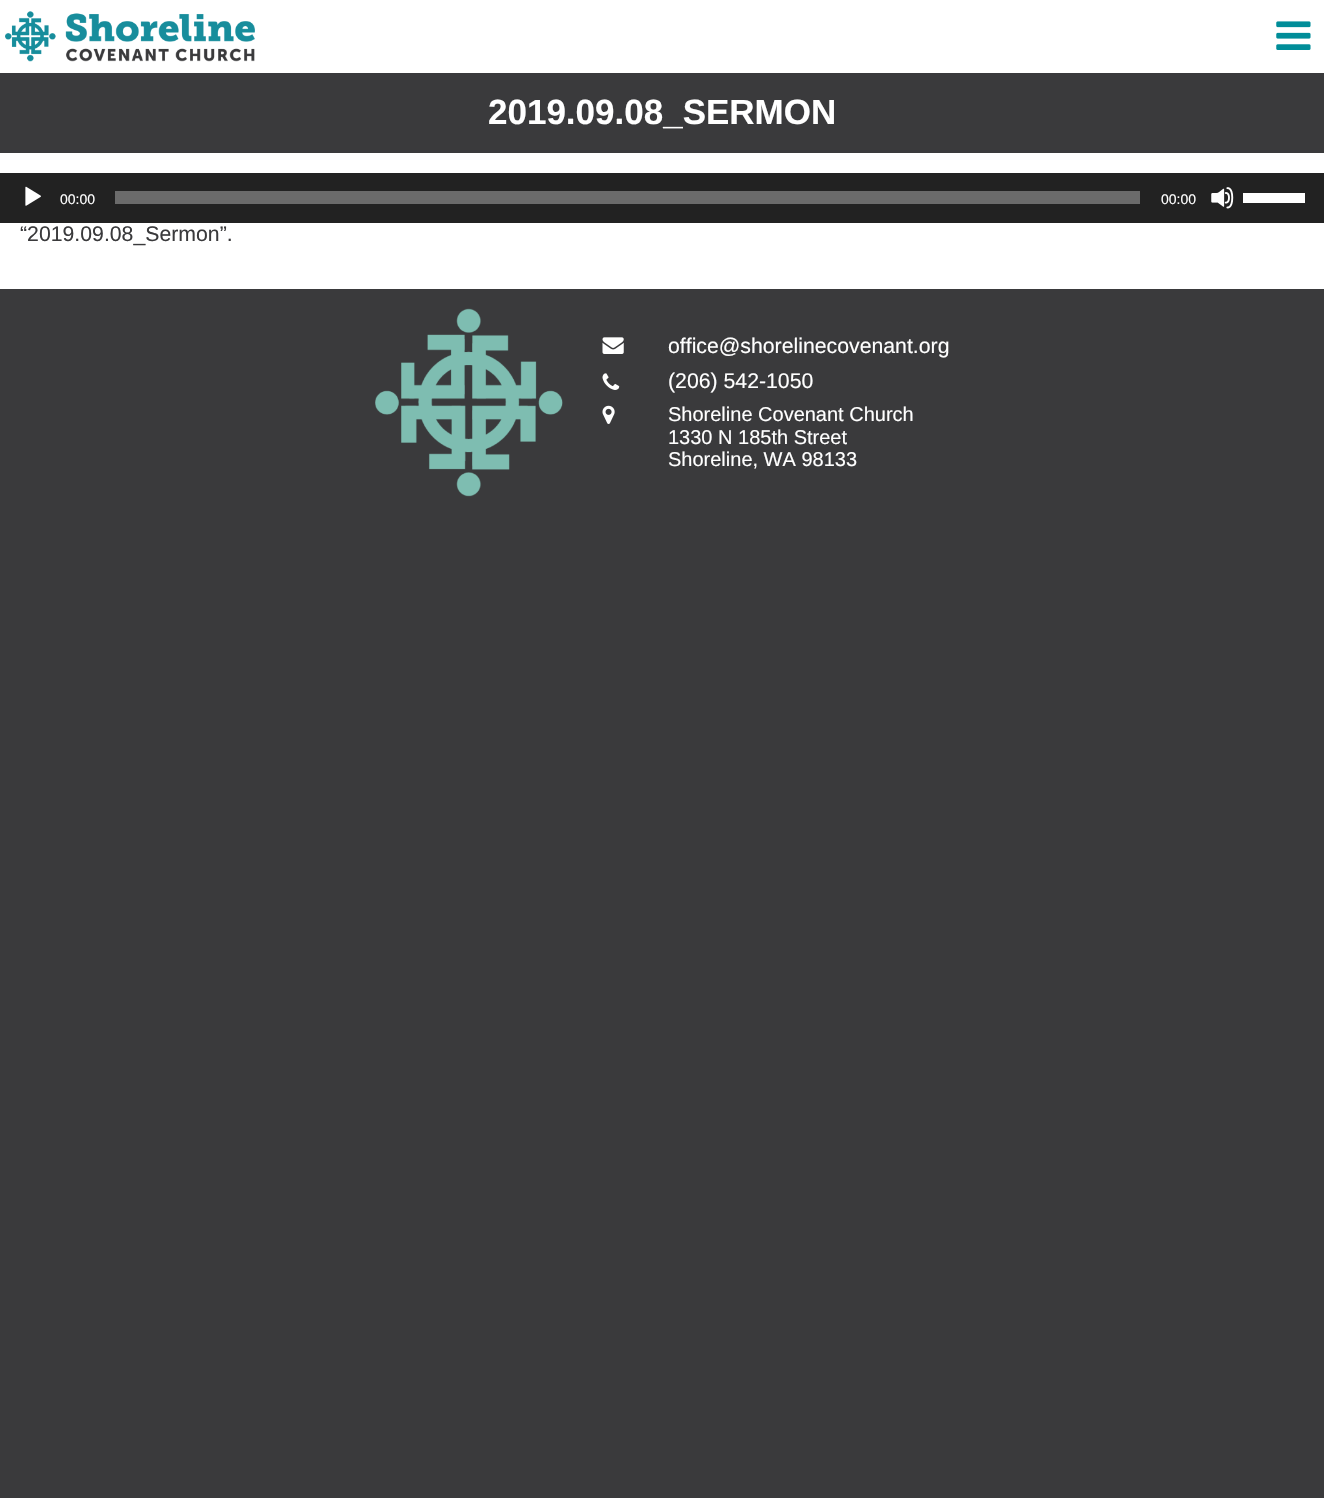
#include "include/core/SkBlurTypes.h"
#include "include/core/SkCanvas.h"
#include "include/core/SkData.h"
#include "include/core/SkFont.h"
#include "include/core/SkFontMgr.h"
#include "include/core/SkImage.h"
#include "include/core/SkMaskFilter.h"
#include "include/core/SkPaint.h"
#include "include/core/SkPathBuilder.h"
#include "include/core/SkTextBlob.h"
#include "include/effects/SkDashPathEffect.h"
#include "include/effects/SkGradientShader.h"
#include "include/utils/SkParsePath.h"

extern sk_sp<SkFontMgr> fontMgr;

void draw(SkCanvas* canvas) {
    SkPaint p;
    p.setAntiAlias(true);
    auto font = [&](const char* family, int weight, float size, bool italic = false) {
        SkFontStyle style(weight, SkFontStyle::kNormal_Width,
            italic ? SkFontStyle::kItalic_Slant : SkFontStyle::kUpright_Slant);
        SkFont result(fontMgr->matchFamilyStyle(family, style), size);
        result.setSubpixel(true);
        return result;
    };
    auto drawPhoto = [&](const char* path, float l, float t, float r, float b) {
        auto image = SkImages::DeferredFromEncodedData(SkData::MakeFromFileName(path));
        canvas->drawImageRect(image, SkRect::MakeLTRB(l, t, r, b), SkSamplingOptions());
    };
    canvas->clear(0xFF3A3A3C);
    p.setColor(0xFFFFFFFF);
    canvas->drawRect(SkRect::MakeLTRB(0, 0, 1324, 73), p);
    drawPhoto("media/1.png", 5, 11, 255, 62);
    drawPhoto("media/2.png", 1276, 21, 1311, 50);
    auto font1 = font("Liberation Sans", 700, 35);
    canvas->drawString("2019.09.08_SERMON", 488, 124, font1, p);
    canvas->drawRect(SkRect::MakeLTRB(0, 153, 1324, 289), p);
    p.setColor(0xFF222222);
    canvas->drawRect(SkRect::MakeLTRB(0, 173, 1324, 223), p);
    drawPhoto("media/3.png", 25, 186, 41, 206);
    auto font2 = font("Liberation Sans", 400, 14);
    p.setColor(0xFFFFFFFF);
    canvas->drawString("00:00", 60, 204, font2, p);
    p.setColor(0xFF6B6B6B);
    canvas->drawRect(SkRect::MakeLTRB(115, 191, 1140, 204), p);
    p.setColor(0xFFFFFFFF);
    canvas->drawString("00:00", 1161, 204, font2, p);
    drawPhoto("media/4.png", 1211, 187, 1234, 209);
    canvas->drawRect(SkRect::MakeLTRB(1243, 193, 1305, 203), p);
    auto font3 = font("Liberation Sans", 400, 21.25f);
    p.setColor(0xFF3A3A3C);
    canvas->drawString("“2019.09.08_Sermon”.", 20, 241, font3, p);
    drawPhoto("media/5.png", 375, 308, 563, 497);
    drawPhoto("media/6.png", 602, 337, 624, 354);
    p.setColor(0xFFFFFFFF);
    canvas->drawString("office@shorelinecovenant.org", 668, 353, font3, p);
    drawPhoto("media/7.png", 602, 373, 620, 390);
    canvas->drawString("(206) 542-1050", 668, 388, font3, p);
    drawPhoto("media/8.png", 602, 405, 615, 424);
    auto font4 = font("Liberation Sans", 400, 20);
    {
        const struct { const char* s; float x, y; } items[] = {
            {"Shoreline Covenant Church", 668, 421},
            {"1330 N 185th Street", 668, 444},
            {"Shoreline, WA 98133", 668, 466},
        };
        for (auto [s, x, y] : items) {
            canvas->drawString(s, x, y, font4, p);
        }
    }
}
